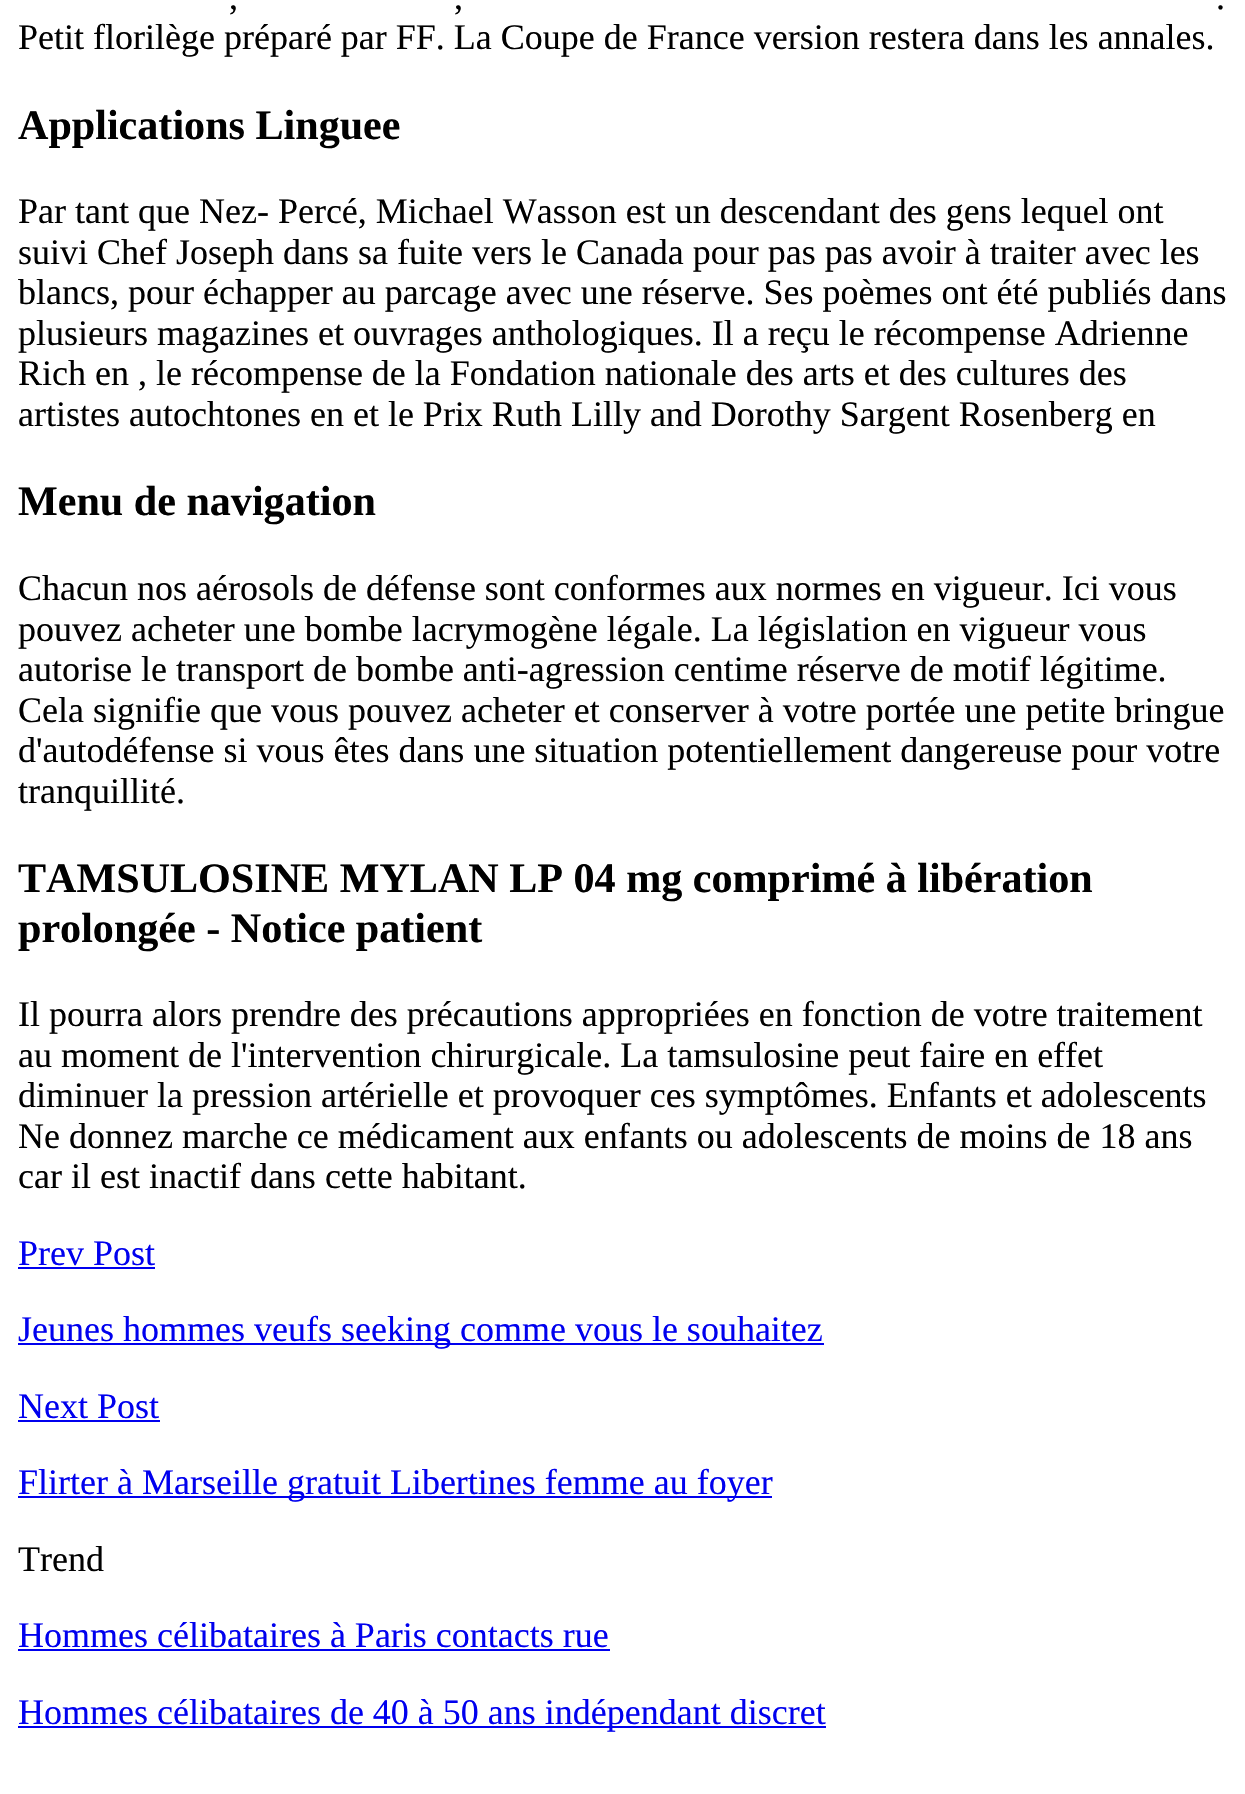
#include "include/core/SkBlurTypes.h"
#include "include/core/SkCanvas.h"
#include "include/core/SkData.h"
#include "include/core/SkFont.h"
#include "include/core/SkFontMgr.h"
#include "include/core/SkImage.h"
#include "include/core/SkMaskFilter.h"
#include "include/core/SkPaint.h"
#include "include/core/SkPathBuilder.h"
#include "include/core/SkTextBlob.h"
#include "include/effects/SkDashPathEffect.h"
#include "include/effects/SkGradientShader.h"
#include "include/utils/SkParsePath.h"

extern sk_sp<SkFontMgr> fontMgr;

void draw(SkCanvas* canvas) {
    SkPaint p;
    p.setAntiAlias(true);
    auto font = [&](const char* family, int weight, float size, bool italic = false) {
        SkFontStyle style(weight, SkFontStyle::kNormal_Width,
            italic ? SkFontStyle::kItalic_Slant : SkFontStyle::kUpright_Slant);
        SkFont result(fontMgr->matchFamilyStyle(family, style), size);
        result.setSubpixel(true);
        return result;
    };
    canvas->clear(0xFFFFFFFF);
    auto font1 = font("Liberation Serif", 400, 36);
    p.setColor(0xFF000000);
    {
        const struct { const char* s; float x, y; } items[] = {
            {",", 229, 9},
            {",", 454, 9},
            {".", 1216, 9},
            {"Petit florilège préparé par FF. La Coupe de France version restera dans les annales.", 18, 49},
        };
        for (auto [s, x, y] : items) {
            canvas->drawString(s, x, y, font1, p);
        }
    }
    auto font2 = font("Liberation Serif", 700, 42.1f);
    canvas->drawString("Applications Linguee", 18, 139, font2, p);
    {
        const struct { const char* s; float x, y; } items[] = {
            {"Par tant que Nez- Percé, Michael Wasson est un descendant des gens lequel ont", 18, 223},
            {"suivi Chef Joseph dans sa fuite vers le Canada pour pas pas avoir à traiter avec les", 18, 264},
            {"blancs, pour échapper au parcage avec une réserve. Ses poèmes ont été publiés dans", 18, 304},
            {"plusieurs magazines et ouvrages anthologiques. Il a reçu le récompense Adrienne", 18, 345},
            {"Rich en , le récompense de la Fondation nationale des arts et des cultures des", 18, 385},
            {"artistes autochtones en et le Prix Ruth Lilly and Dorothy Sargent Rosenberg en", 18, 426},
        };
        for (auto [s, x, y] : items) {
            canvas->drawString(s, x, y, font1, p);
        }
    }
    canvas->drawString("Menu de navigation", 18, 515, font2, p);
    {
        const struct { const char* s; float x, y; } items[] = {
            {"Chacun nos aérosols de défense sont conformes aux normes en vigueur. Ici vous", 18, 600},
            {"pouvez acheter une bombe lacrymogène légale. La législation en vigueur vous", 18, 641},
            {"autorise le transport de bombe anti-agression centime réserve de motif légitime.", 18, 681},
            {"Cela signifie que vous pouvez acheter et conserver à votre portée une petite bringue", 18, 722},
            {"d'autodéfense si vous êtes dans une situation potentiellement dangereuse pour votre", 18, 762},
            {"tranquillité.", 18, 803},
        };
        for (auto [s, x, y] : items) {
            canvas->drawString(s, x, y, font1, p);
        }
    }
    canvas->drawString("TAMSULOSINE MYLAN LP 04 mg comprimé à libération", 18, 892, font2, p);
    canvas->drawString("prolongée - Notice patient", 18, 942, font2, p);
    {
        const struct { const char* s; float x, y; } items[] = {
            {"Il pourra alors prendre des précautions appropriées en fonction de votre traitement", 18, 1026},
            {"au moment de l'intervention chirurgicale. La tamsulosine peut faire en effet", 18, 1067},
            {"diminuer la pression artérielle et provoquer ces symptômes. Enfants et adolescents", 18, 1107},
            {"Ne donnez marche ce médicament aux enfants ou adolescents de moins de 18 ans", 18, 1148},
            {"car il est inactif dans cette habitant.", 18, 1188},
        };
        for (auto [s, x, y] : items) {
            canvas->drawString(s, x, y, font1, p);
        }
    }
    p.setColor(0xFF0000EE);
    canvas->drawString("Prev Post", 18, 1265, font1, p);
    canvas->drawRect(SkRect::MakeLTRB(18, 1267, 155, 1269), p);
    canvas->drawRect(SkRect::MakeLTRB(18, 1343, 824, 1345), p);
    canvas->drawString("Jeunes hommes veufs seeking comme vous le souhaitez", 18, 1341, font1, p);
    canvas->drawString("Next Post", 18, 1418, font1, p);
    canvas->drawRect(SkRect::MakeLTRB(18, 1420, 160, 1422), p);
    canvas->drawRect(SkRect::MakeLTRB(18, 1496, 772, 1498), p);
    canvas->drawString("Flirter à Marseille gratuit Libertines femme au foyer", 18, 1494, font1, p);
    p.setColor(0xFF000000);
    canvas->drawString("Trend", 18, 1571, font1, p);
    p.setColor(0xFF0000EE);
    canvas->drawString("Hommes célibataires à Paris contacts rue", 18, 1647, font1, p);
    canvas->drawRect(SkRect::MakeLTRB(18, 1649, 610, 1651), p);
    canvas->drawRect(SkRect::MakeLTRB(18, 1726, 826, 1728), p);
    canvas->drawString("Hommes célibataires de 40 à 50 ans indépendant discret", 18, 1724, font1, p);
}
